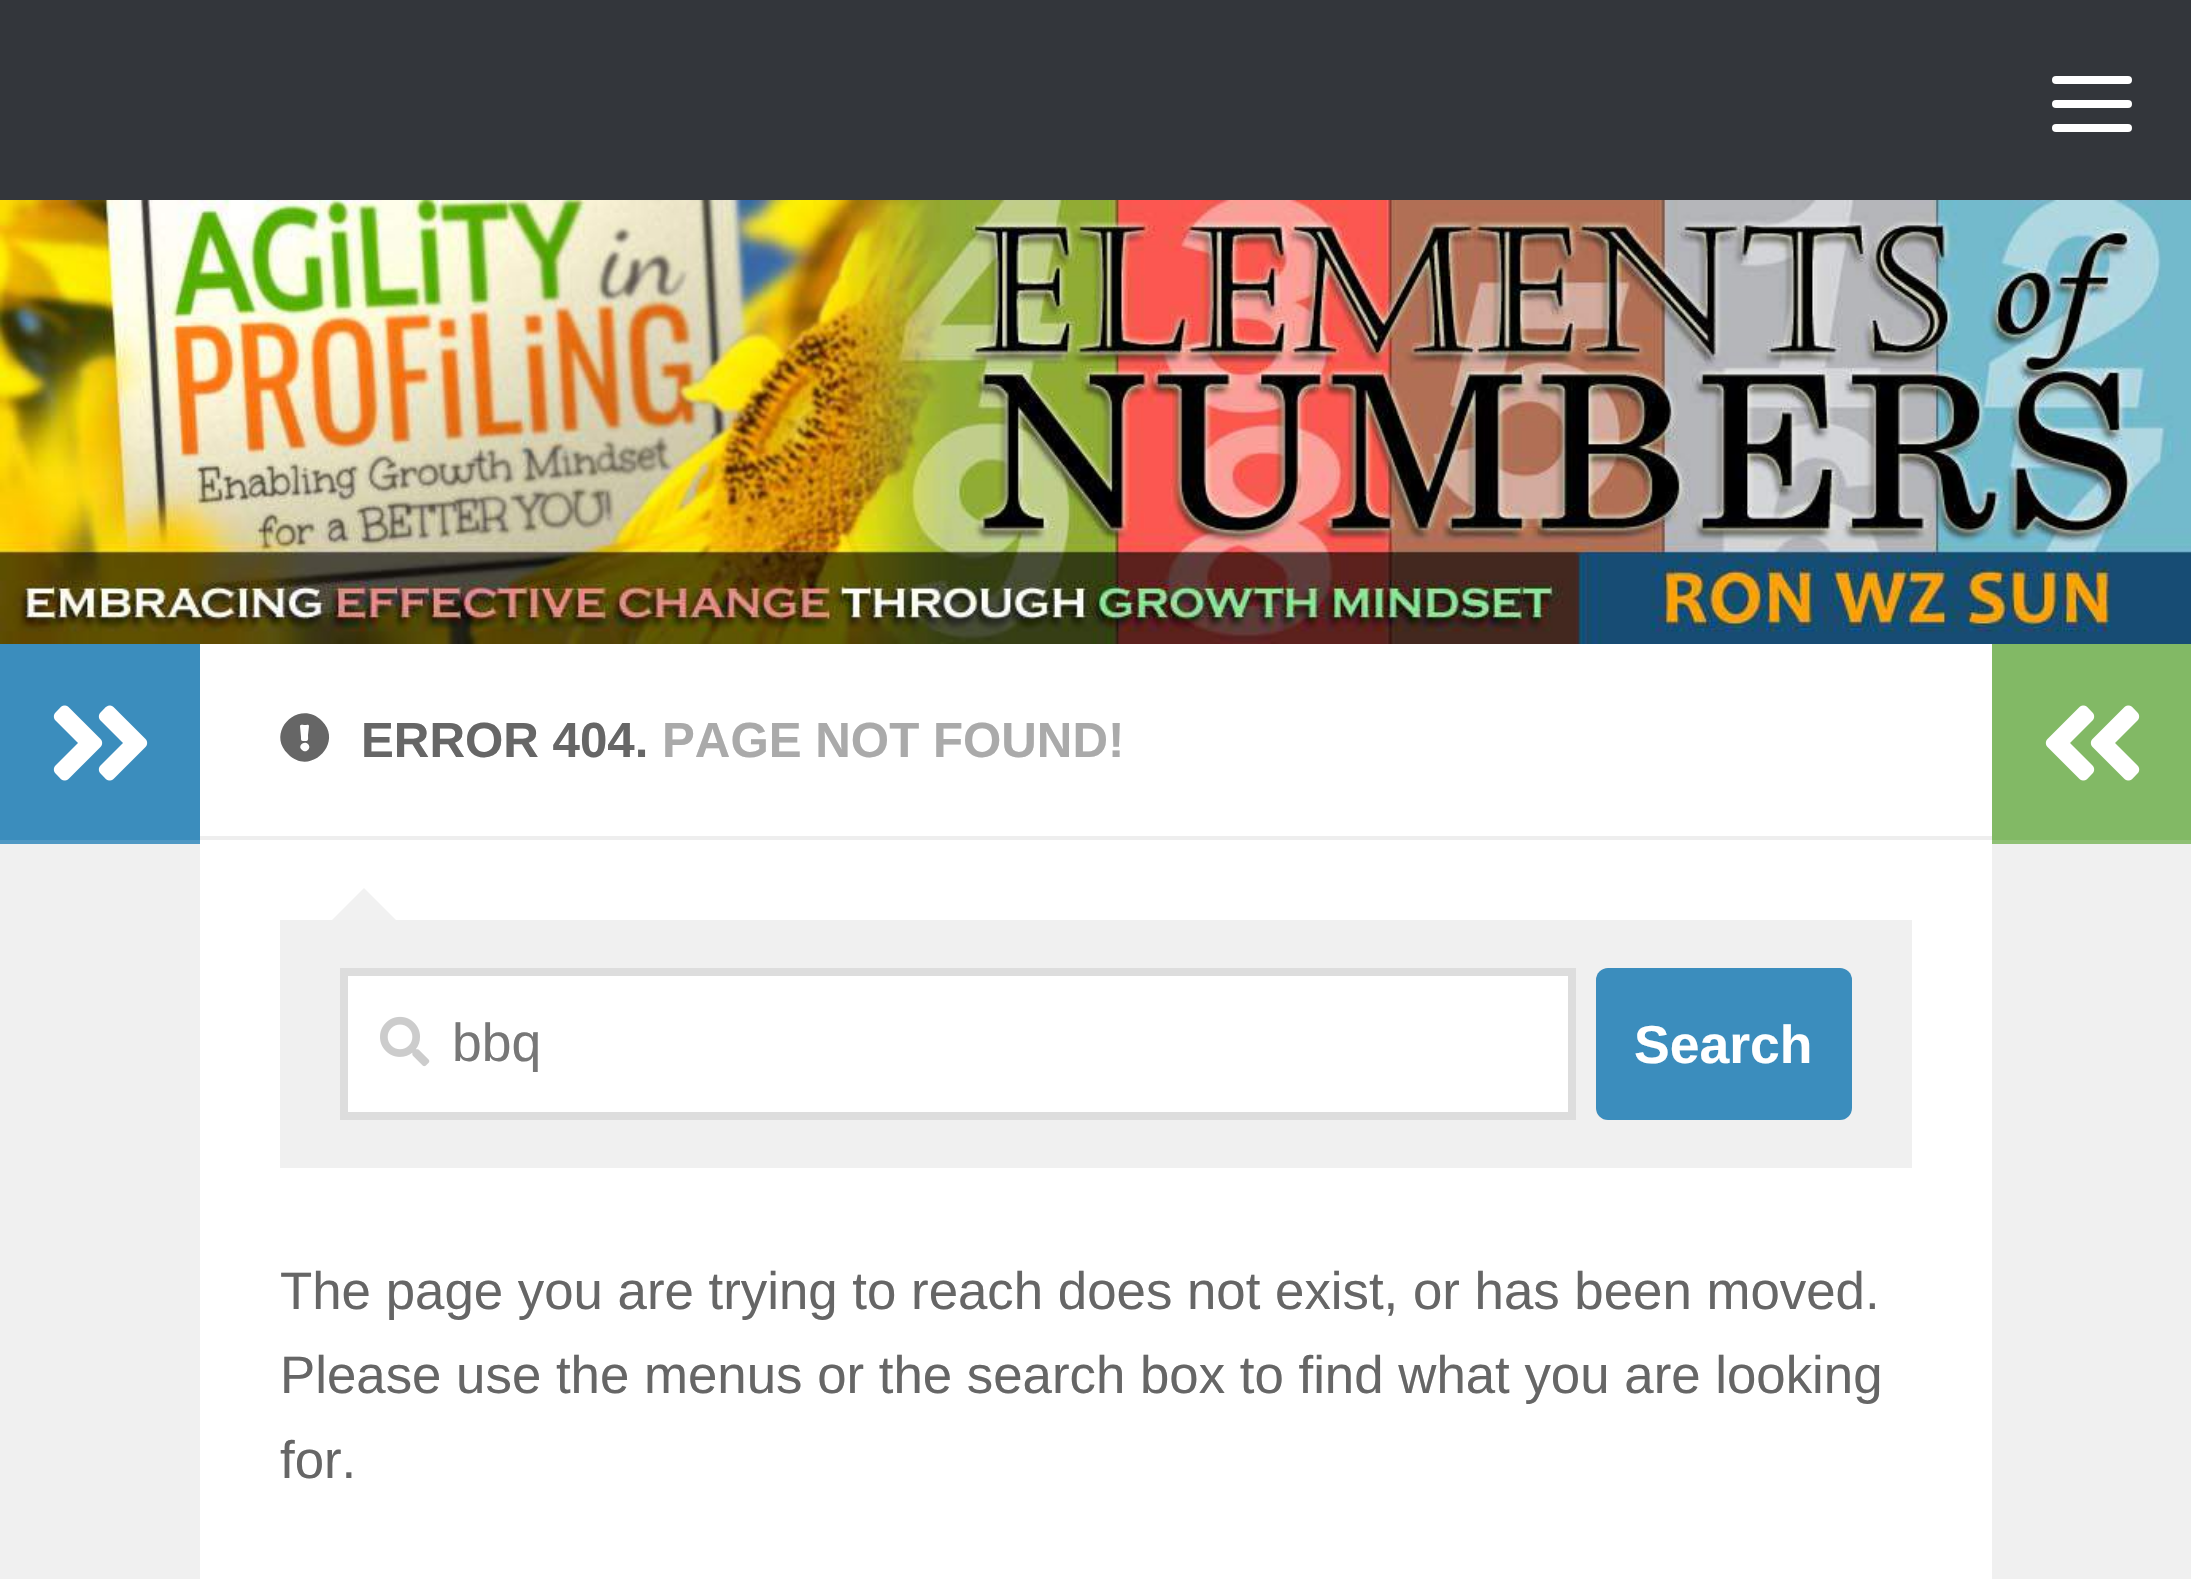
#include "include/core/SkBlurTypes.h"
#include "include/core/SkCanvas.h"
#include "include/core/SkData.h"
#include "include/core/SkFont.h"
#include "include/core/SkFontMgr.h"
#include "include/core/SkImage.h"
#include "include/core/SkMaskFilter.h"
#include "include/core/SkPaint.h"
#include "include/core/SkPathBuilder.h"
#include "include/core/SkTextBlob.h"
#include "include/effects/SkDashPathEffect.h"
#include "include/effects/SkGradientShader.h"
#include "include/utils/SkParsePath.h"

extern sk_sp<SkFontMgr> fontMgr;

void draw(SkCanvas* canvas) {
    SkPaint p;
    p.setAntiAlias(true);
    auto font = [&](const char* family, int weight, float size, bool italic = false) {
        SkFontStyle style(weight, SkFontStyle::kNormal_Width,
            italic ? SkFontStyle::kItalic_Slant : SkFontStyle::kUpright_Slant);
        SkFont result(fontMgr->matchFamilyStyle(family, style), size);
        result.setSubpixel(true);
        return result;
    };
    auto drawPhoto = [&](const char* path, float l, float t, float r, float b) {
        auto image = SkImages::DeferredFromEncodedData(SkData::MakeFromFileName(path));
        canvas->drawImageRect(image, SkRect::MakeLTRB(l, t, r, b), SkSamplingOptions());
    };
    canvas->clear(0xFFFFFFFF);
    p.setColor(0xFF33363B);
    canvas->drawRect(SkRect::MakeLTRB(0, 0, 2191, 200), p);
    p.setColor(0xFFFFFFFF);
    canvas->drawRoundRect(SkRect::MakeLTRB(2052, 76, 2132, 84), 4, 4, p);
    canvas->drawRoundRect(SkRect::MakeLTRB(2052, 100, 2132, 108), 4, 4, p);
    canvas->drawRoundRect(SkRect::MakeLTRB(2052, 124, 2132, 132), 4, 4, p);
    drawPhoto("media/1.png", 0, 200, 2191, 644);
    {
        const struct { float l, t, r, b; SkColor color; } items[] = {
            {0, 844, 200, 1579, 0xFFF0F0F0},
            {0, 644, 200, 840, 0xFF3B8DBD},
            {0, 840, 200, 844, 0xFF4F98C4},
        };
        for (auto [l, t, r, b, color] : items) {
            p.setColor(color);
            canvas->drawRect(SkRect::MakeLTRB(l, t, r, b), p);
        }
    }
    drawPhoto("media/2.png", 53, 705, 148, 781);
    p.setColor(0xFFEEEEEE);
    canvas->drawRect(SkRect::MakeLTRB(200, 836, 1992, 840), p);
    p.setColor(0xFF666666);
    canvas->drawPath(SkPathBuilder().moveTo(322, 721).cubicTo(344, 743, 310, 777, 288, 754).cubicTo(265, 732, 299, 698, 322, 721).close().moveTo(308, 744).cubicTo(304, 740, 297, 746, 302, 750).cubicTo(306, 754, 312, 748, 308, 744).close().moveTo(300, 726).lineTo(301, 737).cubicTo(301, 741, 301, 741, 305, 741).cubicTo(309, 741, 308, 739, 308, 735).lineTo(309, 726).cubicTo(309, 724, 306, 725, 305, 725).cubicTo(304, 725, 300, 724, 300, 726).close().detach(), p);
    auto font1 = font("Liberation Sans", 700, 49.25f);
    canvas->drawString("ERROR 404.", 361, 757, font1, p);
    p.setColor(0xFFAAAAAA);
    canvas->drawString("PAGE NOT FOUND!", 662, 757, font1, p);
    p.setColor(0xFFF0F0F0);
    canvas->drawRect(SkRect::MakeLTRB(280, 920, 1912, 1168), p);
    p.setColor(0xFFF1F1F1);
    canvas->drawPath(SkPathBuilder().moveTo(396, 920).lineTo(332, 920).lineTo(364, 888).close().detach(), p);
    p.setColor(0xFFFFFFFF);
    canvas->drawRect(SkRect::MakeLTRB(344, 972, 1572, 1116), p);
    p.setStyle(SkPaint::kStroke_Style);
    p.setStrokeWidth(8);
    p.setColor(0xFFDDDDDD);
    canvas->drawRect(SkRect::MakeLTRB(344, 972, 1572, 1116), p);
    drawPhoto("media/3.png", 380, 1016, 430, 1067);
    auto font2 = font("Liberation Sans", 400, 53.5f);
    p.setStyle(SkPaint::kFill_Style);
    p.setColor(0xFF777777);
    canvas->drawString("bbq", 452, 1061, font2, p);
    p.setColor(0xFF3B8DBD);
    canvas->drawRoundRect(SkRect::MakeLTRB(1596, 968, 1852, 1120), 12, 12, p);
    auto font3 = font("Liberation Sans", 700, 53.5f);
    p.setColor(0xFFFFFFFF);
    canvas->drawString("Search", 1634, 1063, font3, p);
    auto font4 = font("Liberation Sans", 400, 52.8f);
    p.setColor(0xFF666666);
    {
        const struct { const char* s; float x, y; } items[] = {
            {"The page you are trying to reach does not exist, or has been moved.", 280, 1309},
            {"Please use the menus or the search box to find what you are looking", 280, 1393},
            {"for.", 280, 1478},
        };
        for (auto [s, x, y] : items) {
            canvas->drawString(s, x, y, font4, p);
        }
    }
    p.setColor(0xFF82B965);
    canvas->drawRect(SkRect::MakeLTRB(1992, 644, 2191, 840), p);
    p.setColor(0xFF8FC074);
    canvas->drawRect(SkRect::MakeLTRB(1992, 840, 2191, 844), p);
    drawPhoto("media/4.png", 2045, 705, 2140, 781);
    p.setColor(0xFFF0F0F0);
    canvas->drawRect(SkRect::MakeLTRB(1992, 844, 2191, 1579), p);
}
